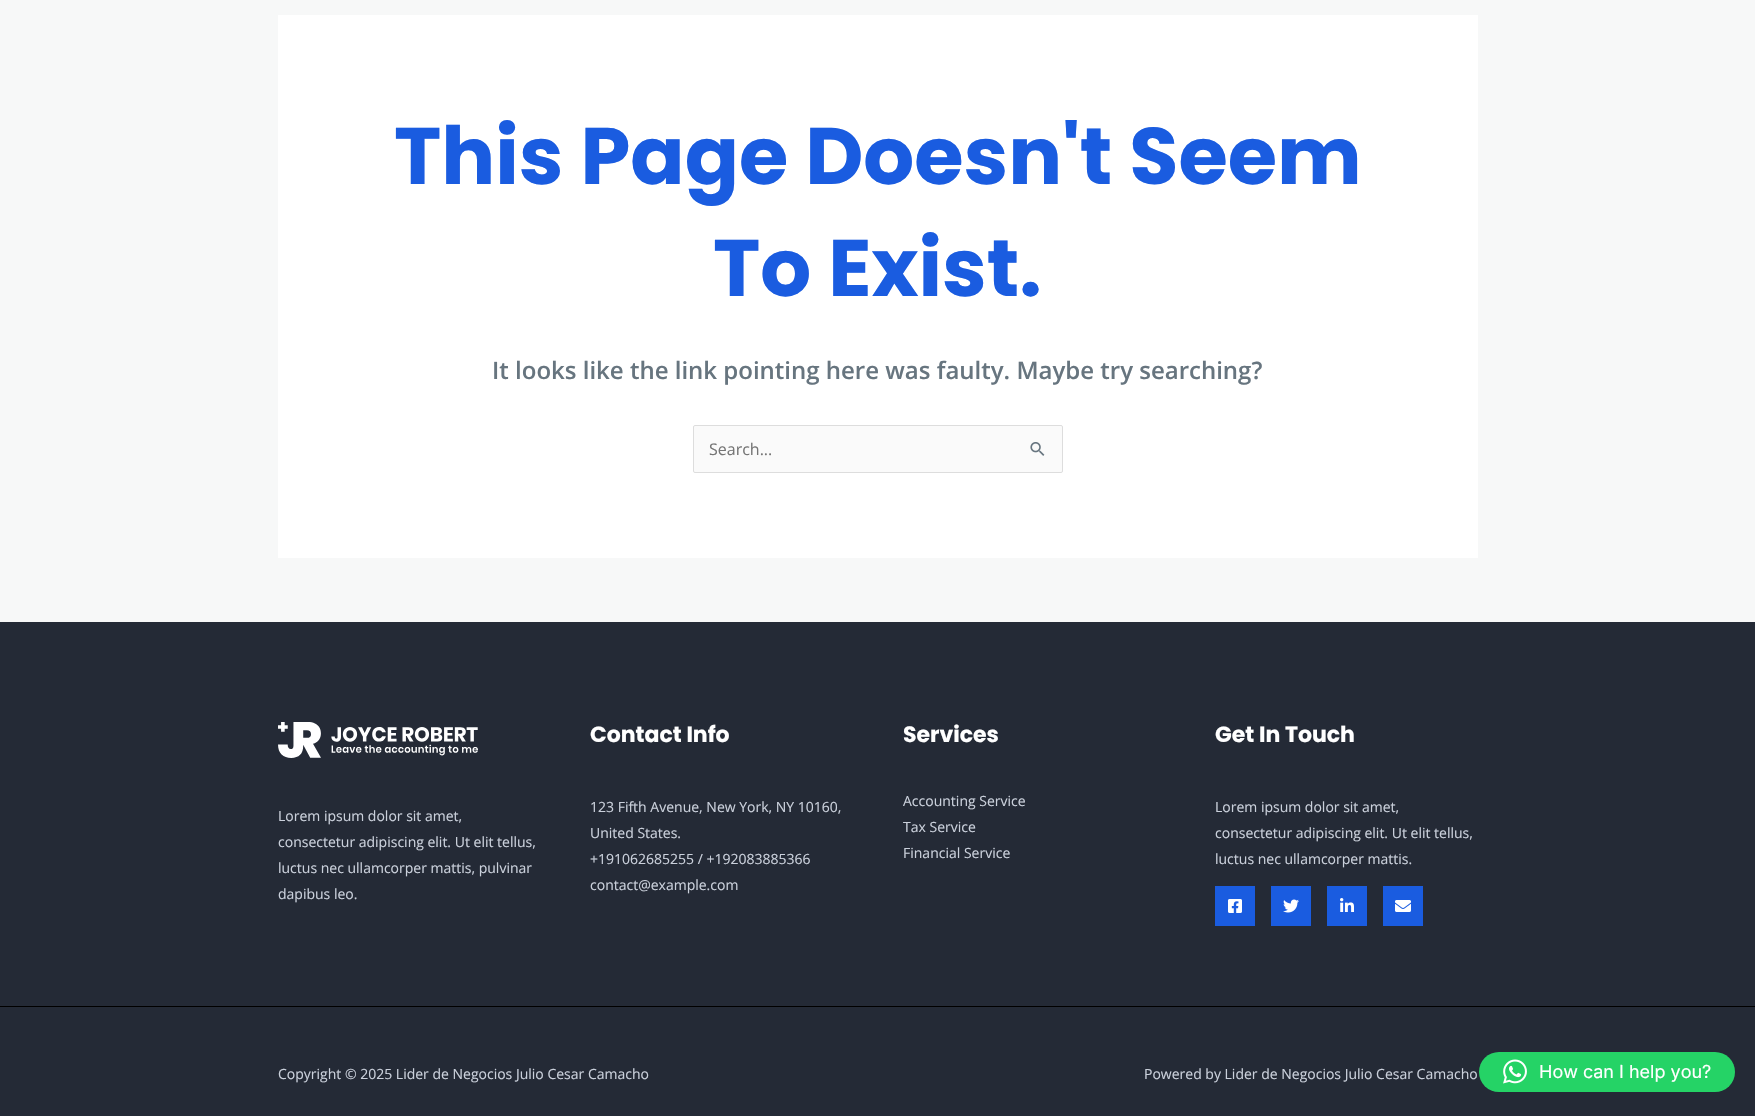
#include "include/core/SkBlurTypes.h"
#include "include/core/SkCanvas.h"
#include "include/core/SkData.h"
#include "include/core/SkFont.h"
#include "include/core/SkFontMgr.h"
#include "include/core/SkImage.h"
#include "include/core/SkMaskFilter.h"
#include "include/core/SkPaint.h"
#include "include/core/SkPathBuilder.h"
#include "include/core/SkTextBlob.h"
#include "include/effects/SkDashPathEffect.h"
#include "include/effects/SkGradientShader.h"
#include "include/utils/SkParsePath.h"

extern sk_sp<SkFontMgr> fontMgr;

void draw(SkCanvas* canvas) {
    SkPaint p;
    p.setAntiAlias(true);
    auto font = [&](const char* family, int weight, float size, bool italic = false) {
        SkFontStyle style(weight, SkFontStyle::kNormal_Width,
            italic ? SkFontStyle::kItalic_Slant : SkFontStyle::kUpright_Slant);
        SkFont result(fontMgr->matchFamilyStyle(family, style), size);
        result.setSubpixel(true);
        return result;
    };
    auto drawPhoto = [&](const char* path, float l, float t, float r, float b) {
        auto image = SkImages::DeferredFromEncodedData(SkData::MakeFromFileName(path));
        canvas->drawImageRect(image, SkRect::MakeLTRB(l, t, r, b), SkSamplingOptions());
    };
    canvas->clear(0xFFF7F8F8);
    p.setColor(0xFFFFFFFF);
    canvas->drawRect(SkRect::MakeLTRB(278, 15, 1478, 558), p);
    auto font1 = font("Poppins", 700, 80);
    p.setColor(0xFF1A5CE0);
    canvas->drawString("This Page Doesn't Seem", 394, 184, font1, p);
    canvas->drawString("To Exist.", 713, 296, font1, p);
    auto font2 = font("Open Sans", 600, 24);
    p.setColor(0xFF67757F);
    canvas->drawString("It looks like the link pointing here was faulty. Maybe try searching?", 492, 379, font2, p);
    p.setColor(0xFFFAFAFA);
    canvas->drawRoundRect(SkRect::MakeLTRB(693.5f, 425.5f, 1062.5f, 472.5f), 1.5f, 1.5f, p);
    p.setStyle(SkPaint::kStroke_Style);
    p.setStrokeWidth(1);
    p.setColor(0xFFDDDDDD);
    canvas->drawRoundRect(SkRect::MakeLTRB(693.5f, 425.5f, 1062.5f, 472.5f), 1.5f, 1.5f, p);
    auto font3 = font("Open Sans", 400, 16);
    p.setStyle(SkPaint::kFill_Style);
    p.setColor(0xFF757575);
    canvas->drawString("Search...", 709, 455, font3, p);
    drawPhoto("media/1.png", 1030, 442, 1045, 456);
    p.setColor(0xFF242A36);
    canvas->drawRect(SkRect::MakeLTRB(0, 622, 1755, 1116), p);
    drawPhoto("media/2.png", 278, 722, 478, 758);
    auto font4 = font("Open Sans", 400, 14);
    p.setColor(0xFFCAD0DB);
    {
        const struct { const char* s; float x, y; } items[] = {
            {"Lorem ipsum dolor sit amet,", 278, 821},
            {"consectetur adipiscing elit. Ut elit tellus,", 278, 847},
            {"luctus nec ullamcorper mattis, pulvinar", 278, 873},
            {"dapibus leo.", 278, 899},
        };
        for (auto [s, x, y] : items) {
            canvas->drawString(s, x, y, font4, p);
        }
    }
    auto font5 = font("Poppins", 700, 22);
    p.setColor(0xFFFFFFFF);
    canvas->drawString("Contact Info", 590, 742, font5, p);
    p.setColor(0xFFCAD0DB);
    {
        const struct { const char* s; float x, y; } items[] = {
            {"123 Fifth Avenue, New York, NY 10160,", 590, 812},
            {"United States.", 590, 838},
            {"+191062685255 / +192083885366", 590, 864},
            {"contact@example.com", 590, 890},
        };
        for (auto [s, x, y] : items) {
            canvas->drawString(s, x, y, font4, p);
        }
    }
    p.setColor(0xFFFFFFFF);
    canvas->drawString("Services", 903, 742, font5, p);
    p.setColor(0xFFCAD0DB);
    {
        const struct { const char* s; float x, y; } items[] = {
            {"Accounting Service", 903, 806},
            {"Tax Service", 903, 832},
            {"Financial Service", 903, 858},
        };
        for (auto [s, x, y] : items) {
            canvas->drawString(s, x, y, font4, p);
        }
    }
    p.setColor(0xFFFFFFFF);
    canvas->drawString("Get In Touch", 1215, 742, font5, p);
    p.setColor(0xFFCAD0DB);
    {
        const struct { const char* s; float x, y; } items[] = {
            {"Lorem ipsum dolor sit amet,", 1215, 812},
            {"consectetur adipiscing elit. Ut elit tellus,", 1215, 838},
            {"luctus nec ullamcorper mattis.", 1215, 864},
        };
        for (auto [s, x, y] : items) {
            canvas->drawString(s, x, y, font4, p);
        }
    }
    p.setColor(0xFF1A5CE0);
    canvas->drawRect(SkRect::MakeLTRB(1215, 886, 1255, 926), p);
    drawPhoto("media/3.png", 1228, 899, 1242, 913);
    canvas->drawRect(SkRect::MakeLTRB(1271, 886, 1311, 926), p);
    drawPhoto("media/4.png", 1283, 899, 1299, 913);
    canvas->drawRect(SkRect::MakeLTRB(1327, 886, 1367, 926), p);
    drawPhoto("media/5.png", 1340, 898, 1354, 912);
    canvas->drawRect(SkRect::MakeLTRB(1383, 886, 1423, 926), p);
    drawPhoto("media/6.png", 1395, 900, 1411, 912);
    p.setColor(0xFF000000);
    canvas->drawRect(SkRect::MakeLTRB(0, 1006, 1755, 1007), p);
    p.setColor(0xFFCAD0DB);
    canvas->drawString("Copyright © 2025 Lider de Negocios Julio Cesar Camacho", 278, 1079, font4, p);
    canvas->drawString("Powered by Lider de Negocios Julio Cesar Camacho", 1144, 1079, font4, p);
    p.setColor(0xFF25D366);
    canvas->drawRoundRect(SkRect::MakeLTRB(1479, 1052, 1735, 1092), 20, 20, p);
    drawPhoto("media/7.png", 1503, 1059, 1527, 1084);
    auto font6 = font("Inter", 400, 18);
    p.setColor(0xFFFFFFFF);
    canvas->drawString("How can I help you?", 1539, 1078, font6, p);
}
